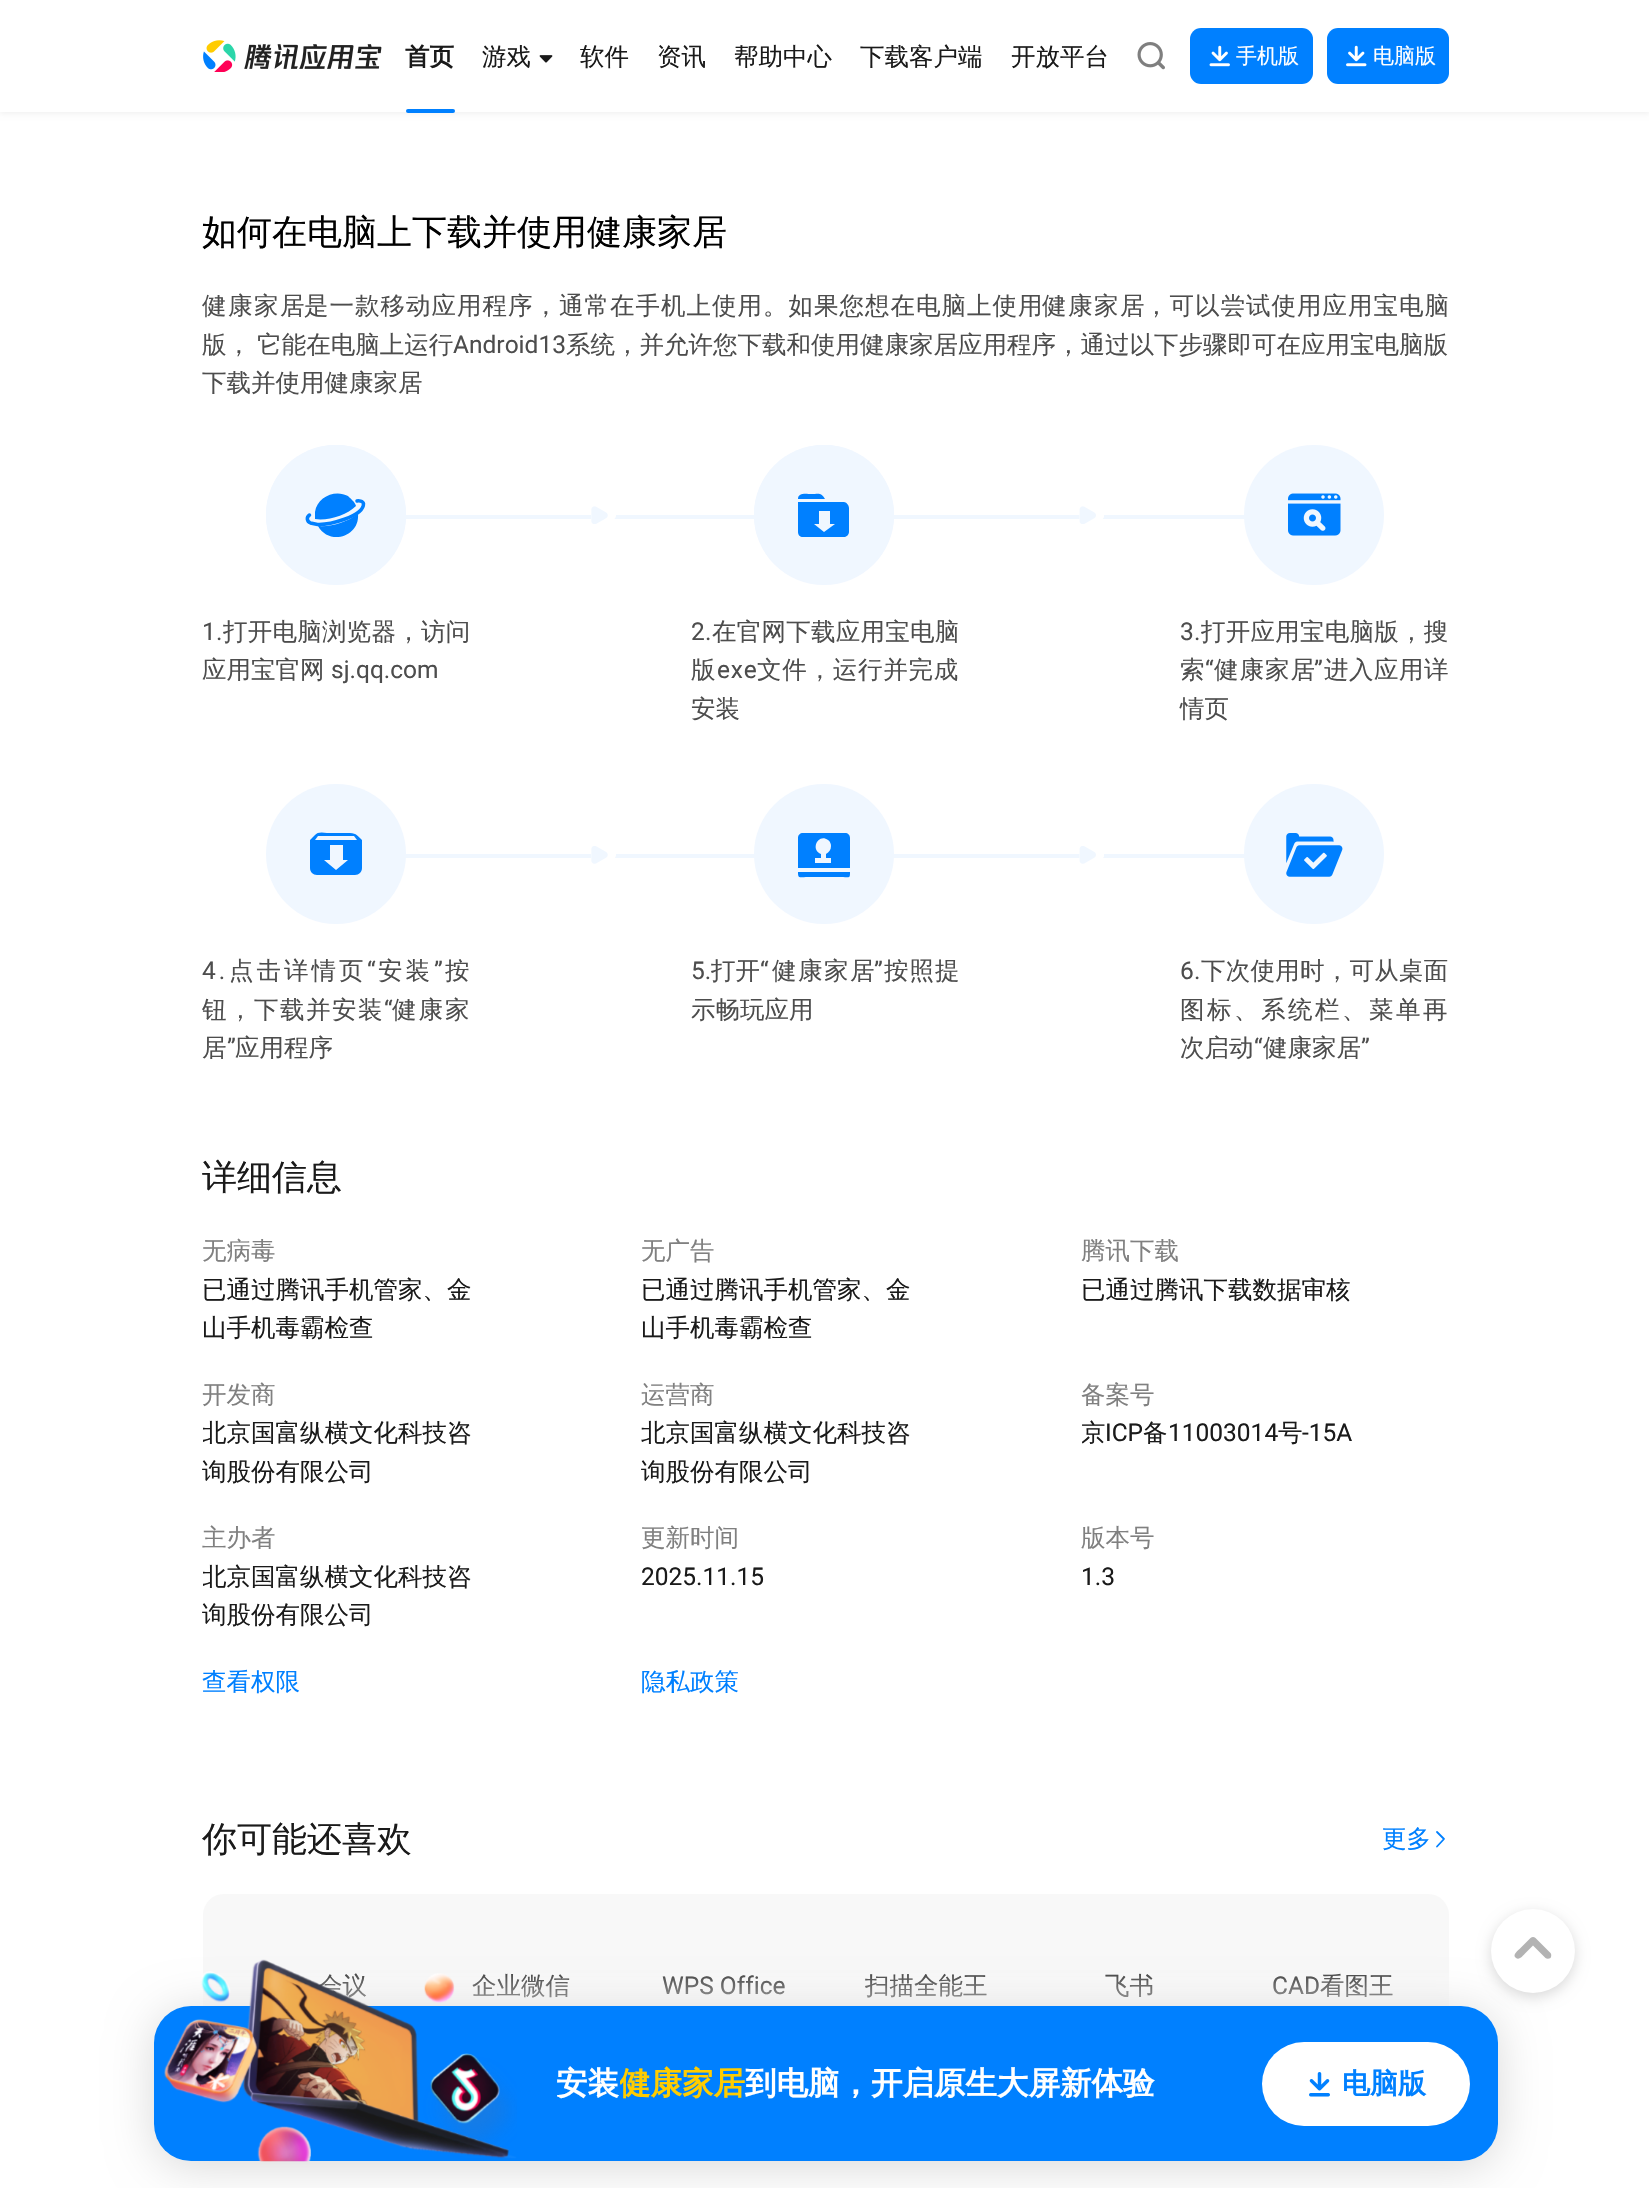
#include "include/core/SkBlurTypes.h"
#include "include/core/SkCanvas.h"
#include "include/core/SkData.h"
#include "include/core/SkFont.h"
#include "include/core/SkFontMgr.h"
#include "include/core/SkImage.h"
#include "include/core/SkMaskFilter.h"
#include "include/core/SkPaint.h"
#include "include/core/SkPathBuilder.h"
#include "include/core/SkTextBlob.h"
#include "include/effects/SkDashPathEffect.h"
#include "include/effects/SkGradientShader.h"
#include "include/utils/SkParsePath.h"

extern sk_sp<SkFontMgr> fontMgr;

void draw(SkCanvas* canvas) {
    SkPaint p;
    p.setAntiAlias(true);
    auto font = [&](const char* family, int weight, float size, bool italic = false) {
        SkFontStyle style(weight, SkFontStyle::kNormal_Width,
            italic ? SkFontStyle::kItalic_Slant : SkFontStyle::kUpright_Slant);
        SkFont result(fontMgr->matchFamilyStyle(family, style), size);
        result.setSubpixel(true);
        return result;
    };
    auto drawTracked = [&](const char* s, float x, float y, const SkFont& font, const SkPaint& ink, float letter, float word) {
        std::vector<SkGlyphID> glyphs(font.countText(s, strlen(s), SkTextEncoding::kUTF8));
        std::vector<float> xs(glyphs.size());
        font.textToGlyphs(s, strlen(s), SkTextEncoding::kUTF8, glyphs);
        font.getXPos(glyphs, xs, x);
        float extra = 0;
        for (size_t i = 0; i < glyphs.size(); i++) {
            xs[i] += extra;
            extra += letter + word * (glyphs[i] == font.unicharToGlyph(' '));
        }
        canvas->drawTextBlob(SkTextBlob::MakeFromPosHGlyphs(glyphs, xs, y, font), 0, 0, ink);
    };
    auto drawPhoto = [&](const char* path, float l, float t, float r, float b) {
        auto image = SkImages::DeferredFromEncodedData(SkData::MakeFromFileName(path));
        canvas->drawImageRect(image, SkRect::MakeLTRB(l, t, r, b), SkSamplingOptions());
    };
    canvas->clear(0xFFFFFFFF);
    p.setColor(0x0D000000);
    p.setMaskFilter(SkMaskFilter::MakeBlur(kNormal_SkBlurStyle, 2.5f));
    canvas->drawRect(SkRect::MakeLTRB(0, 2, 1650, 114), p);
    p.setMaskFilter(nullptr);
    p.setColor(0xFFFFFFFF);
    canvas->drawRect(SkRect::MakeLTRB(0, 0, 1649, 112), p);
    drawPhoto("media/1.png", 203, 40, 382, 72);
    auto font1 = font("WenQuanYi Zen Hei", 700, 24.5f);
    p.setColor(0xFF1A1A1A);
    canvas->drawString("首页", 405, 65, font1, p);
    p.setColor(0xFF0080FF);
    canvas->drawRoundRect(SkRect::MakeLTRB(406, 109, 455, 113), 2, 2, p);
    auto font2 = font("WenQuanYi Zen Hei", 500, 24.5f);
    p.setColor(0xFF1A1A1A);
    canvas->drawString("游戏", 482, 65, font2, p);
    drawPhoto("media/2.png", 539, 55, 553, 63);
    {
        const struct { const char* s; float x, y; } items[] = {
            {"软件", 580, 65},
            {"资讯", 657, 65},
            {"帮助中心", 734, 65},
            {"下载客户端", 860, 65},
            {"开放平台", 1011, 65},
        };
        for (auto [s, x, y] : items) {
            canvas->drawString(s, x, y, font2, p);
        }
    }
    drawPhoto("media/3.png", 1137, 42, 1165, 70);
    p.setColor(0xFF0080FF);
    canvas->drawRoundRect(SkRect::MakeLTRB(1190, 28, 1313, 84), 11, 11, p);
    drawPhoto("media/4.png", 1209, 45, 1230, 67);
    auto font3 = font("WenQuanYi Zen Hei", 500, 21);
    p.setColor(0xFFFFFFFF);
    canvas->drawString("手机版", 1236, 63, font3, p);
    p.setColor(0xFF0080FF);
    canvas->drawRoundRect(SkRect::MakeLTRB(1327, 28, 1449, 84), 11, 11, p);
    drawPhoto("media/5.png", 1346, 45, 1367, 67);
    p.setColor(0xFFFFFFFF);
    canvas->drawString("电脑版", 1373, 63, font3, p);
    auto font4 = font("WenQuanYi Zen Hei", 500, 35);
    p.setColor(0xFF000000);
    canvas->drawString("如何在电脑上下载并使用健康家居", 202, 244, font4, p);
    p.setColor(0xFF4D4D4D);
    drawTracked("健康家居", 202, 314, font2, p, 1.5f, 0);
    drawTracked("是一款移动应用程序，通常在手机上使用。如果您想在电脑上使用", 304, 314, font2, p, 1, 0);
    drawTracked("健康家居", 1042, 314, font2, p, 1.5f, 0);
    drawTracked("，可以尝试使用应用宝电脑", 1144, 314, font2, p, 1, 0);
    drawTracked("版， 它能在电脑上运行", 202, 353, font2, p, 0, -1);
    auto font5 = font("Roboto", 400, 24.5f);
    canvas->drawString("Android13", 453, 353, font5, p);
    canvas->drawString("系统，并允许您下载和使用健康家居应用程序，通过以下步骤即可在应用宝电脑版", 566, 353, font2, p);
    canvas->drawString("下载并使用健康家居", 202, 391, font2, p);
    p.setColor(0xFFF0F7FF);
    canvas->drawCircle(336, 515, 70, p);
    canvas->drawPath(SkPathBuilder().moveTo(336, 445).cubicTo(375, 445, 406, 476, 406, 515).cubicTo(406, 553, 375, 584, 336, 584).cubicTo(297, 584, 266, 553, 266, 515).cubicTo(266, 476, 297, 445, 336, 445).close().detach(), p);
    p.setColor(0xFF0080FF);
    canvas->drawPath(SkPathBuilder(SkPathFillType::kEvenOdd).moveTo(348, 496).cubicTo(335, 489, 317, 497, 315, 512).close().moveTo(318, 526).cubicTo(329, 546, 360, 537, 358, 514).cubicTo(347, 522, 332, 527, 318, 526).close().moveTo(348, 496).lineTo(315, 512).lineTo(315, 519).cubicTo(328, 521, 347, 515, 356, 506).cubicTo(355, 502, 351, 499, 348, 496).close().detach(), p);
    p.setStyle(SkPaint::kStroke_Style);
    p.setStrokeWidth(3.5f);
    p.setStrokeCap(SkPaint::kRound_Cap);
    canvas->drawPath(SkPathBuilder().moveTo(309.5f, 515).cubicTo(306, 517.5f, 307, 521.5f, 310.5f, 523).lineTo(317.5f, 524.5f).cubicTo(327.5f, 525, 364, 517, 363.5f, 503.5f).cubicTo(363, 501, 358.5f, 500.5f, 357, 501).detach(), p);
    p.setStyle(SkPaint::kFill_Style);
    p.setColor(0xFFF0F7FF);
    canvas->drawRect(SkRect::MakeLTRB(403, 515, 755, 519), p);
    drawPhoto("media/6.png", 591, 506, 616, 524);
    p.setColor(0xFF4D4D4D);
    drawTracked("1.", 202, 640, font5, p, 0.25f, 0);
    drawTracked("打开电脑浏览器，访问", 223, 640, font2, p, 0.25f, 0);
    canvas->drawString("应用宝官网", 202, 678, font2, p);
    canvas->drawString("sj.qq.com", 331, 678, font5, p);
    p.setColor(0xFFF0F7FF);
    canvas->drawCircle(824, 515, 70, p);
    canvas->drawPath(SkPathBuilder().moveTo(824, 445).cubicTo(863, 445, 894, 476, 894, 515).cubicTo(894, 553, 863, 584, 824, 584).cubicTo(785, 584, 754, 553, 754, 515).cubicTo(754, 476, 785, 445, 824, 445).close().detach(), p);
    p.setColor(0xFF0080FF);
    canvas->drawPath(SkPathBuilder(SkPathFillType::kEvenOdd).moveTo(798, 499).cubicTo(798, 492, 807, 494, 811, 494).cubicTo(819, 494, 821, 492, 825, 499).close().moveTo(798, 502).lineTo(798, 532).cubicTo(798, 535, 800, 537, 803, 537).lineTo(844, 537).cubicTo(846, 537, 849, 535, 849, 532).lineTo(849, 508).cubicTo(849, 505, 846, 502, 844, 502).lineTo(827, 502).lineTo(825, 499).lineTo(827, 502).close().moveTo(819, 511).lineTo(830, 511).lineTo(830, 524).lineTo(835, 524).lineTo(824, 532).lineTo(814, 524).lineTo(819, 524).close().detach(), p);
    p.setColor(0xFFF0F7FF);
    canvas->drawRect(SkRect::MakeLTRB(891, 515, 1245, 519), p);
    drawPhoto("media/7.png", 1079, 506, 1104, 524);
    p.setColor(0xFF4D4D4D);
    drawTracked("2.", 691, 640, font5, p, 0.25f, 0);
    drawTracked("在官网下载应用宝电脑", 712, 640, font2, p, 0.25f, 0);
    drawTracked("版", 691, 678, font2, p, 0.75f, 0);
    drawTracked("exe", 717, 678, font5, p, 0.75f, 0);
    drawTracked("文件，运行并完成", 757, 678, font2, p, 0.75f, 0);
    canvas->drawString("安装", 691, 717, font2, p);
    p.setColor(0xFFF0F7FF);
    canvas->drawCircle(1314, 515, 70, p);
    drawPhoto("media/8.png", 1288, 493, 1341, 536);
    p.setColor(0xFF4D4D4D);
    drawTracked("3.", 1180, 640, font5, p, 0.25f, 0);
    drawTracked("打开应用宝电脑版，搜", 1201, 640, font2, p, 0.25f, 0);
    canvas->drawString("索", 1180, 678, font2, p);
    canvas->drawString("“", 1205, 678, font5, p);
    drawTracked("健康家居", 1214, 678, font2, p, 1, 0);
    drawTracked("”", 1314, 678, font5, p, 0.5f, 0);
    drawTracked("进入应用详", 1324, 678, font2, p, 0.5f, 0);
    canvas->drawString("情页", 1180, 717, font2, p);
    p.setColor(0xFFF0F7FF);
    canvas->drawCircle(336, 854, 70, p);
    p.setColor(0xFF0080FF);
    canvas->drawPath(SkPathBuilder(SkPathFillType::kEvenOdd).moveTo(315, 835).lineTo(310, 840).lineTo(310, 868).cubicTo(310, 872, 313, 875, 317, 875).lineTo(355, 875).cubicTo(359, 875, 362, 872, 362, 868).lineTo(362, 840).cubicTo(356, 834, 356, 833, 347, 833).lineTo(327, 833).cubicTo(322, 832, 317, 832, 315, 835).close().moveTo(354, 836).lineTo(357, 840).lineTo(315, 840).lineTo(318, 836).close().moveTo(330, 845).lineTo(330, 860).lineTo(324, 860).lineTo(336, 870).lineTo(348, 860).lineTo(343, 860).lineTo(343, 845).close().detach(), p);
    p.setColor(0xFFF0F7FF);
    canvas->drawRect(SkRect::MakeLTRB(403, 854, 755, 858), p);
    drawPhoto("media/9.png", 591, 846, 616, 864);
    p.setColor(0xFF4D4D4D);
    drawTracked("4.", 202, 979, font5, p, 3, 0);
    drawTracked("点击详情页", 229, 979, font2, p, 3, 0);
    drawTracked("“", 367, 979, font5, p, 3, 0);
    drawTracked("安装", 378, 979, font2, p, 3, 0);
    drawTracked("”", 434, 979, font5, p, 3, 0);
    drawTracked("按", 445, 979, font2, p, 3, 0);
    drawTracked("钮，下载并安装", 202, 1018, font2, p, 1.5f, 0);
    drawTracked("“", 384, 1018, font5, p, 1.5f, 0);
    drawTracked("健康家", 392, 1018, font2, p, 2, 0);
    canvas->drawString("居", 202, 1056, font2, p);
    canvas->drawString("”", 227, 1056, font5, p);
    canvas->drawString("应用程序", 235, 1056, font2, p);
    p.setColor(0xFFF0F7FF);
    canvas->drawCircle(824, 854, 70, p);
    p.setColor(0xFF0080FF);
    canvas->drawPath(SkPathBuilder(SkPathFillType::kEvenOdd).moveTo(798, 838).cubicTo(798, 835, 800, 833, 803, 833).lineTo(845, 833).cubicTo(848, 833, 850, 835, 850, 838).lineTo(850, 868).lineTo(798, 868).close().moveTo(831, 846).cubicTo(831, 850, 829, 852, 826, 854).lineTo(826, 858).lineTo(831, 858).lineTo(831, 863).lineTo(815, 863).lineTo(815, 858).lineTo(821, 858).lineTo(821, 854).cubicTo(810, 850, 818, 833, 828, 840).cubicTo(830, 841, 831, 844, 831, 846).close().moveTo(850, 872).lineTo(798, 872).cubicTo(798, 879, 799, 877, 808, 877).lineTo(841, 877).cubicTo(850, 877, 850, 879, 850, 872).close().detach(), p);
    p.setColor(0xFFF0F7FF);
    canvas->drawRect(SkRect::MakeLTRB(891, 854, 1245, 858), p);
    drawPhoto("media/10.png", 1079, 846, 1104, 864);
    p.setColor(0xFF4D4D4D);
    canvas->drawString("5.", 691, 979, font5, p);
    canvas->drawString("打开", 711, 979, font2, p);
    canvas->drawString("“", 760, 979, font5, p);
    drawTracked("健康家居", 772, 979, font2, p, 1.5f, 0);
    drawTracked("”", 874, 979, font5, p, 1, 0);
    drawTracked("按照提", 884, 979, font2, p, 1, 0);
    canvas->drawString("示畅玩应用", 691, 1018, font2, p);
    p.setColor(0xFFF0F7FF);
    canvas->drawCircle(1314, 854, 70, p);
    drawPhoto("media/11.png", 1286, 833, 1343, 877);
    p.setColor(0xFF4D4D4D);
    drawTracked("6.", 1180, 979, font5, p, 0.25f, 0);
    drawTracked("下次使用时，可从桌面", 1201, 979, font2, p, 0.25f, 0);
    drawTracked("图标、系统栏、菜单再", 1180, 1018, font2, p, 2.5f, 0);
    canvas->drawString("次启动", 1180, 1056, font2, p);
    canvas->drawString("“", 1254, 1056, font5, p);
    canvas->drawString("健康家居", 1263, 1056, font2, p);
    canvas->drawString("”", 1361, 1056, font5, p);
    p.setColor(0xFF1A1A1A);
    canvas->drawString("详细信息", 202, 1189, font4, p);
    p.setColor(0xFF808080);
    canvas->drawString("无病毒", 202, 1259, font2, p);
    p.setColor(0xFF1A1A1A);
    canvas->drawString("已通过腾讯手机管家、金", 202, 1298, font2, p);
    canvas->drawString("山手机毒霸检查", 202, 1336, font2, p);
    p.setColor(0xFF808080);
    canvas->drawString("无广告", 641, 1259, font2, p);
    p.setColor(0xFF1A1A1A);
    canvas->drawString("已通过腾讯手机管家、金", 641, 1298, font2, p);
    canvas->drawString("山手机毒霸检查", 641, 1336, font2, p);
    p.setColor(0xFF808080);
    canvas->drawString("腾讯下载", 1081, 1259, font2, p);
    p.setColor(0xFF1A1A1A);
    canvas->drawString("已通过腾讯下载数据审核", 1081, 1298, font2, p);
    p.setColor(0xFF808080);
    canvas->drawString("开发商", 202, 1403, font2, p);
    canvas->save();
    canvas->clipRect(SkRect::MakeLTRB(203, 1414, 487, 1491));
    p.setColor(0xFF1A1A1A);
    canvas->drawString("北京国富纵横文化科技咨", 202, 1441, font2, p);
    canvas->restore();
    canvas->drawString("询股份有限公司", 202, 1480, font2, p);
    p.setColor(0xFF808080);
    canvas->drawString("运营商", 641, 1403, font2, p);
    p.setColor(0xFF1A1A1A);
    canvas->drawString("北京国富纵横文化科技咨", 641, 1441, font2, p);
    canvas->drawString("询股份有限公司", 641, 1480, font2, p);
    p.setColor(0xFF808080);
    canvas->drawString("备案号", 1081, 1403, font2, p);
    canvas->save();
    canvas->clipRect(SkRect::MakeLTRB(1082, 1414, 1365, 1453));
    p.setColor(0xFF1A1A1A);
    canvas->drawString("京", 1081, 1441, font2, p);
    canvas->restore();
    canvas->drawString("ICP", 1105, 1441, font5, p);
    canvas->drawString("备", 1143, 1441, font2, p);
    canvas->drawString("11003014", 1168, 1441, font5, p);
    canvas->drawString("号", 1278, 1441, font2, p);
    canvas->drawString("-15A", 1302, 1441, font5, p);
    p.setColor(0xFF808080);
    canvas->drawString("主办者", 202, 1546, font2, p);
    canvas->save();
    canvas->clipRect(SkRect::MakeLTRB(203, 1558, 487, 1635));
    p.setColor(0xFF1A1A1A);
    canvas->drawString("北京国富纵横文化科技咨", 202, 1585, font2, p);
    canvas->restore();
    canvas->drawString("询股份有限公司", 202, 1623, font2, p);
    p.setColor(0xFF808080);
    canvas->drawString("更新时间", 641, 1546, font2, p);
    p.setColor(0xFF1A1A1A);
    canvas->drawString("2025.11.15", 641, 1585, font5, p);
    p.setColor(0xFF808080);
    canvas->drawString("版本号", 1081, 1546, font2, p);
    p.setColor(0xFF1A1A1A);
    canvas->drawString("1.3", 1081, 1585, font5, p);
    p.setColor(0xFF0080FF);
    canvas->drawString("查看权限", 202, 1690, font2, p);
    canvas->drawString("隐私政策", 641, 1690, font2, p);
    p.setColor(0xFF1A1A1A);
    canvas->drawString("你可能还喜欢", 202, 1851, font4, p);
    p.setColor(0xFF0080FF);
    canvas->drawString("更多", 1382, 1847, font2, p);
    p.setStyle(SkPaint::kStroke_Style);
    p.setStrokeWidth(1.8f);
    p.setStrokeJoin(SkPaint::kRound_Join);
    canvas->drawPath(SkPathBuilder().moveTo(1437, 1832).lineTo(1444, 1839).lineTo(1437, 1846.5f).detach(), p);
    p.setStyle(SkPaint::kFill_Style);
    p.setColor(0xFFF8F8F8);
    canvas->drawRoundRect(SkRect::MakeLTRB(203, 1894, 1449, 2097), 21, 21, p);
    p.setColor(0xFF1A1A1A);
    canvas->drawString("会议", 318, 1994, font2, p);
    canvas->drawString("企业微信", 472, 1994, font2, p);
    canvas->drawString("WPS Office", 662, 1994, font5, p);
    canvas->drawString("扫描全能王", 865, 1994, font2, p);
    canvas->drawString("飞书", 1105, 1994, font2, p);
    canvas->drawString("CAD", 1272, 1994, font5, p);
    canvas->drawString("看图王", 1320, 1994, font2, p);
    {
        const SkColor colors[] = {0x00FFFFFF, 0xFFFFFFFF};
        const float stops[] = {0, 0.34f};
        const SkPoint ends[] = {{826, 1957}, {826, 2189}};
        p.setShader(SkGradientShader::MakeLinear(ends, colors, stops, 2, SkTileMode::kClamp));
        p.setAlpha(255);
    }
    canvas->drawRect(SkRect::MakeLTRB(203, 1973, 1449, 2097), p);
    p.setShader(nullptr);
    p.setColor(0x26000000);
    p.setMaskFilter(SkMaskFilter::MakeBlur(kNormal_SkBlurStyle, 23));
    canvas->drawRoundRect(SkRect::MakeLTRB(154, 2011, 1498, 2167), 37, 37, p);
    p.setMaskFilter(nullptr);
    p.setColor(0xFF0080FF);
    canvas->drawRoundRect(SkRect::MakeLTRB(154, 2006, 1498, 2161), 37, 37, p);
    p.setColor(0x26000000);
    p.setMaskFilter(SkMaskFilter::MakeBlur(kNormal_SkBlurStyle, 7));
    canvas->drawRoundRect(SkRect::MakeLTRB(1491, 1913, 1575, 1997), 42, 42, p);
    p.setMaskFilter(nullptr);
    p.setColor(0xFFFFFFFF);
    canvas->drawCircle(1533, 1951, 42, p);
    p.setColor(0xFFB3B3B3);
    canvas->drawPath(SkPathBuilder(SkPathFillType::kEvenOdd).moveTo(1530.5f, 1938).cubicTo(1532, 1936.5f, 1534, 1936.5f, 1535.5f, 1938).lineTo(1550.5f, 1953).cubicTo(1551.5f, 1954, 1551.5f, 1956.5f, 1550.5f, 1958).cubicTo(1549, 1959, 1546.5f, 1959, 1545.5f, 1958).lineTo(1533, 1945.5f).lineTo(1525, 1953.5f).cubicTo(1523, 1955.5f, 1519.5f, 1960.5f, 1516, 1958).cubicTo(1511.5f, 1955, 1518.5f, 1950, 1520.5f, 1948).close().detach(), p);
    drawPhoto("media/12.png", 164, 1959, 517, 2162);
    canvas->save();
    canvas->clipRect(SkRect::MakeLTRB(557, 2056, 1213, 2112));
    auto font6 = font("WenQuanYi Zen Hei", 700, 31.5f);
    p.setColor(0xFFFFFFFF);
    canvas->drawString("安装", 556, 2094, font6, p);
    canvas->restore();
    canvas->save();
    canvas->clipRect(SkRect::MakeLTRB(620, 2056, 746, 2112));
    p.setColor(0xFFFFCC00);
    canvas->drawString("健康家居", 619, 2094, font6, p);
    canvas->restore();
    p.setColor(0xFFFFFFFF);
    canvas->drawString("到电脑，开启原生大屏新体验", 745, 2094, font6, p);
    canvas->drawRoundRect(SkRect::MakeLTRB(1262, 2042, 1470, 2126), 42, 42, p);
    drawPhoto("media/13.png", 1309, 2072, 1330, 2097);
    auto font7 = font("WenQuanYi Zen Hei", 700, 28);
    p.setColor(0xFF0080FF);
    canvas->drawString("电脑版", 1342, 2093, font7, p);
}
